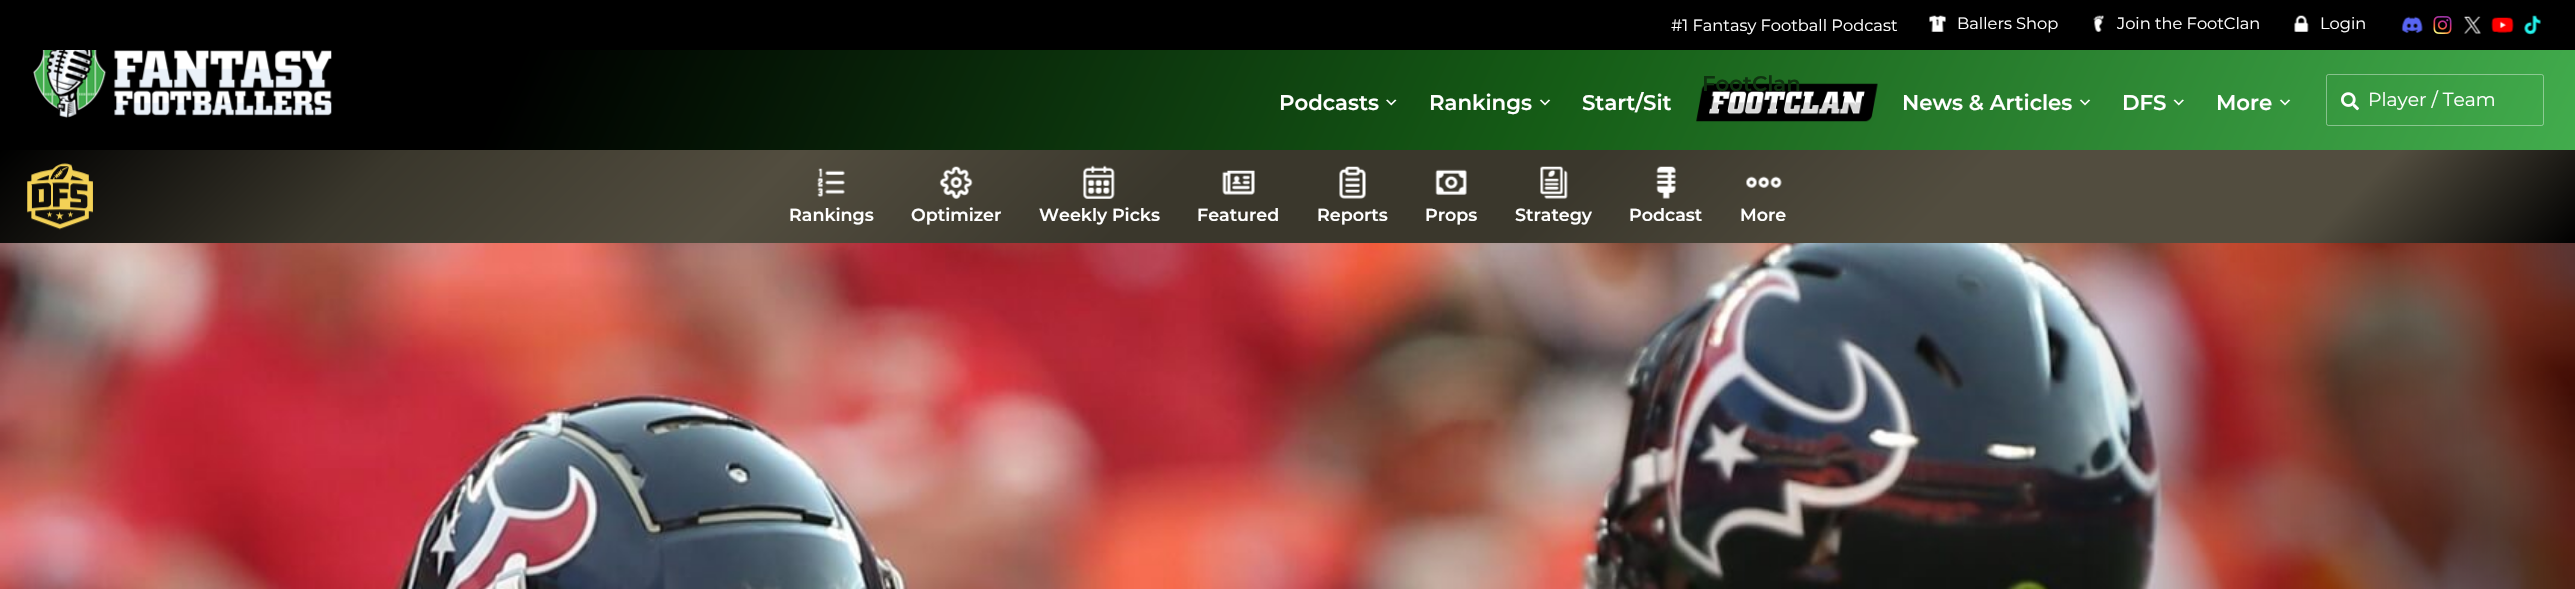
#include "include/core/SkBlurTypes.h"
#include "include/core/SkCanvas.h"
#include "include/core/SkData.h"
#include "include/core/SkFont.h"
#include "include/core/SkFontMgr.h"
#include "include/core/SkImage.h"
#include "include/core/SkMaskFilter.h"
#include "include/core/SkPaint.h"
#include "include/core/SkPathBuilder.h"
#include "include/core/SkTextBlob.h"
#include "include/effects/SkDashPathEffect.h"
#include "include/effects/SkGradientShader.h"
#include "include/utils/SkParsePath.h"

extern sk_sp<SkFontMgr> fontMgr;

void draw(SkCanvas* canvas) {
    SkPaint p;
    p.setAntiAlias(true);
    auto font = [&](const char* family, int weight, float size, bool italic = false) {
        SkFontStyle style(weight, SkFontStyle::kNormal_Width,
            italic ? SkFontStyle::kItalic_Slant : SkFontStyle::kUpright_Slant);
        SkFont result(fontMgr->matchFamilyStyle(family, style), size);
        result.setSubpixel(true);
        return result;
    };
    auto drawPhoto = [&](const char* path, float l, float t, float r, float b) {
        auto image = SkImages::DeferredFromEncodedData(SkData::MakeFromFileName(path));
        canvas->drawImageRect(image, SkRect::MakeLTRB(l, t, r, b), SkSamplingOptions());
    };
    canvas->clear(0xFFFFFFFF);
    p.setColor(0xFF000000);
    canvas->drawRect(SkRect::MakeLTRB(0, 0, 2575, 50), p);
    auto font1 = font("Montserrat", 400, 16.25f);
    p.setColor(0xFFFFFFFF);
    canvas->drawString("#1 Fantasy Football Podcast", 1671, 31, font1, p);
    drawPhoto("media/1.png", 1929, 15, 1946, 32);
    canvas->drawString("Ballers Shop", 1957, 29, font1, p);
    drawPhoto("media/2.png", 2093, 15, 2104, 32);
    canvas->drawString("Join the FootClan", 2117, 29, font1, p);
    drawPhoto("media/3.png", 2294, 15, 2309, 32);
    canvas->drawString("Login", 2320, 29, font1, p);
    drawPhoto("media/4.png", 2401, 16, 2423, 33);
    drawPhoto("media/5.png", 2433, 16, 2452, 34);
    drawPhoto("media/6.png", 2464, 16, 2481, 34);
    drawPhoto("media/7.png", 2491, 17, 2514, 33);
    drawPhoto("media/8.png", 2524, 15, 2541, 35);
    {
        const SkColor colors[] = {0xFF000000, 0xFF155C16, 0xFF42AC4D};
        const float stops[] = {0.2f, 0.6f, 1};
        const SkPoint ends[] = {{211, -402}, {2364, 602}};
        p.setShader(SkGradientShader::MakeLinear(ends, colors, stops, 3, SkTileMode::kClamp));
        p.setAlpha(255);
    }
    canvas->drawRect(SkRect::MakeLTRB(0, 50, 2575, 150), p);
    drawPhoto("media/9.png", 33, 50, 332, 118);
    drawPhoto("media/10.png", 1696, 83, 1878, 122);
    auto font2 = font("Montserrat", 600, 21.25f);
    p.setShader(nullptr);
    p.setColor(0xFF0F3310);
    canvas->drawString("FootClan", 1702, 91, font2, p);
    p.setColor(0xFFFFFFFF);
    canvas->drawString("Podcasts", 1279, 110, font2, p);
    drawPhoto("media/11.png", 1386, 99, 1397, 106);
    canvas->drawString("Rankings", 1429, 110, font2, p);
    drawPhoto("media/12.png", 1539, 99, 1551, 106);
    canvas->drawString("Start/Sit", 1582, 110, font2, p);
    canvas->drawString("News & Articles", 1902, 110, font2, p);
    drawPhoto("media/13.png", 2079, 99, 2091, 106);
    canvas->drawString("DFS", 2122, 110, font2, p);
    drawPhoto("media/14.png", 2173, 99, 2184, 106);
    canvas->drawString("More", 2216, 110, font2, p);
    drawPhoto("media/15.png", 2279, 99, 2291, 106);
    p.setStyle(SkPaint::kStroke_Style);
    p.setStrokeWidth(1);
    p.setColor(0x66FFFFFF);
    canvas->drawRoundRect(SkRect::MakeLTRB(2326.5f, 74.5f, 2543.5f, 125.5f), 2, 2, p);
    drawPhoto("media/16.png", 2341, 92, 2359, 111);
    auto font3 = font("Montserrat", 400, 18.75f);
    p.setStyle(SkPaint::kFill_Style);
    p.setColor(0xFFFFFFFF);
    canvas->drawString("Player / Team", 2368, 106, font3, p);
    {
        const SkColor colors[] = {0xFF000000, 0xFF524D3F, 0xFF524D3F, 0xFF3A372C, 0xFF3A372C, 0xFF524D3F, 0xFF3A372C, 0xFF000000};
        const float stops[] = {0, 0.1f, 0.25f, 0.4f, 0.55f, 0.7f, 0.85f, 1};
        const SkPoint ends[] = {{1954, 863}, {621, -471}};
        p.setShader(SkGradientShader::MakeLinear(ends, colors, stops, 8, SkTileMode::kClamp));
        p.setAlpha(255);
    }
    canvas->drawRect(SkRect::MakeLTRB(0, 150, 2575, 243), p);
    drawPhoto("media/17.png", 27, 163, 93, 230);
    drawPhoto("media/18.png", 817, 168, 845, 197);
    auto font4 = font("Montserrat", 600, 17.5f);
    p.setShader(nullptr);
    p.setColor(0xFFFFFFFF);
    canvas->drawString("Rankings", 789, 221, font4, p);
    drawPhoto("media/19.png", 939, 166, 973, 199);
    canvas->drawString("Optimizer", 911, 221, font4, p);
    drawPhoto("media/20.png", 1082, 165, 1115, 199);
    canvas->drawString("Weekly Picks", 1039, 221, font4, p);
    drawPhoto("media/21.png", 1222, 170, 1255, 195);
    canvas->drawString("Featured", 1197, 221, font4, p);
    drawPhoto("media/22.png", 1339, 166, 1366, 199);
    canvas->drawString("Reports", 1317, 221, font4, p);
    drawPhoto("media/23.png", 1435, 169, 1467, 195);
    canvas->drawString("Props", 1425, 221, font4, p);
    drawPhoto("media/24.png", 1540, 166, 1568, 199);
    canvas->drawString("Strategy", 1515, 221, font4, p);
    drawPhoto("media/25.png", 1656, 166, 1676, 199);
    canvas->drawString("Podcast", 1629, 221, font4, p);
    drawPhoto("media/26.png", 1746, 176, 1782, 188);
    canvas->drawString("More", 1740, 221, font4, p);
    drawPhoto("media/27.png", 0, 243, 2575, 589);
}
